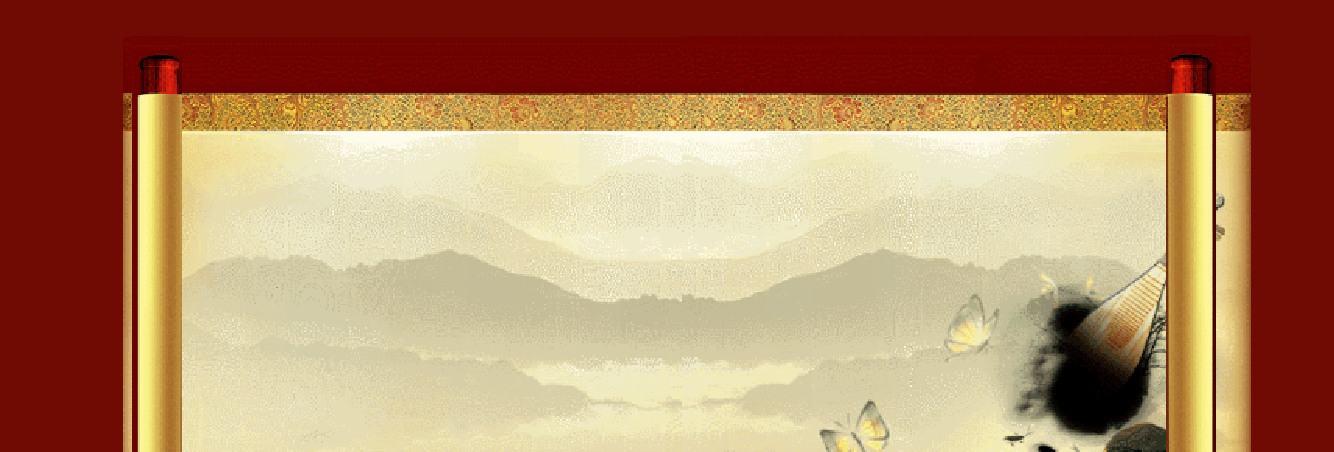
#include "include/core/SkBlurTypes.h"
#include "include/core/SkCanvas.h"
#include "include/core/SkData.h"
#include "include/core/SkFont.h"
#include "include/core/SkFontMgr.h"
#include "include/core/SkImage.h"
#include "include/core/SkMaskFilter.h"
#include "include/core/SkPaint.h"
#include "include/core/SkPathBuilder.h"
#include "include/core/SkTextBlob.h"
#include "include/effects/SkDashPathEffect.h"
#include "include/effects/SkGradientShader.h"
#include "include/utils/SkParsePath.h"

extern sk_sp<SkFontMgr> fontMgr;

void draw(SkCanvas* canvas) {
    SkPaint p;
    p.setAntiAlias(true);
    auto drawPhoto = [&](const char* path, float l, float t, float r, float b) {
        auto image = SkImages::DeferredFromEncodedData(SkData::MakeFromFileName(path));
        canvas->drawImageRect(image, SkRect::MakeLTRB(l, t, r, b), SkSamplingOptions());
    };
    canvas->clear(0xFF6F0B02);
    drawPhoto("media/3.png", 123, 37, 682, 452);
    drawPhoto("media/1.png", 132, 36, 182, 452);
    drawPhoto("media/4.png", 682, 36, 1251, 452);
    drawPhoto("media/2.png", 1166, 35, 1216, 452);
}
